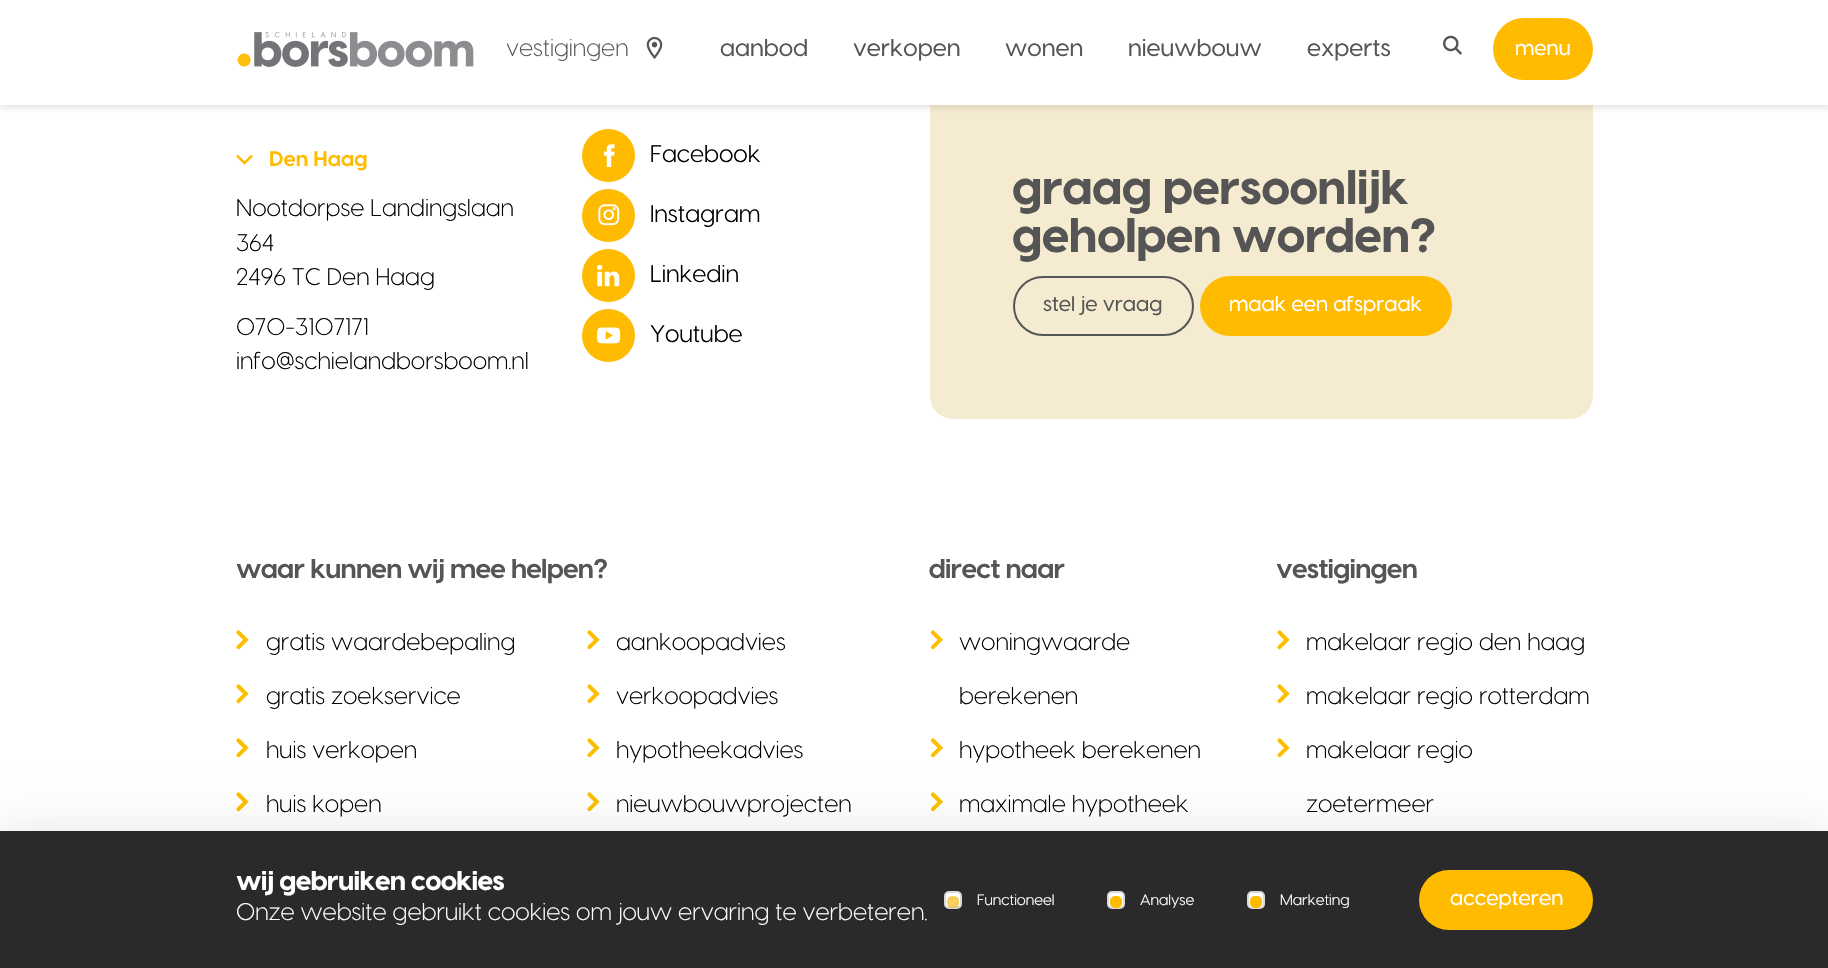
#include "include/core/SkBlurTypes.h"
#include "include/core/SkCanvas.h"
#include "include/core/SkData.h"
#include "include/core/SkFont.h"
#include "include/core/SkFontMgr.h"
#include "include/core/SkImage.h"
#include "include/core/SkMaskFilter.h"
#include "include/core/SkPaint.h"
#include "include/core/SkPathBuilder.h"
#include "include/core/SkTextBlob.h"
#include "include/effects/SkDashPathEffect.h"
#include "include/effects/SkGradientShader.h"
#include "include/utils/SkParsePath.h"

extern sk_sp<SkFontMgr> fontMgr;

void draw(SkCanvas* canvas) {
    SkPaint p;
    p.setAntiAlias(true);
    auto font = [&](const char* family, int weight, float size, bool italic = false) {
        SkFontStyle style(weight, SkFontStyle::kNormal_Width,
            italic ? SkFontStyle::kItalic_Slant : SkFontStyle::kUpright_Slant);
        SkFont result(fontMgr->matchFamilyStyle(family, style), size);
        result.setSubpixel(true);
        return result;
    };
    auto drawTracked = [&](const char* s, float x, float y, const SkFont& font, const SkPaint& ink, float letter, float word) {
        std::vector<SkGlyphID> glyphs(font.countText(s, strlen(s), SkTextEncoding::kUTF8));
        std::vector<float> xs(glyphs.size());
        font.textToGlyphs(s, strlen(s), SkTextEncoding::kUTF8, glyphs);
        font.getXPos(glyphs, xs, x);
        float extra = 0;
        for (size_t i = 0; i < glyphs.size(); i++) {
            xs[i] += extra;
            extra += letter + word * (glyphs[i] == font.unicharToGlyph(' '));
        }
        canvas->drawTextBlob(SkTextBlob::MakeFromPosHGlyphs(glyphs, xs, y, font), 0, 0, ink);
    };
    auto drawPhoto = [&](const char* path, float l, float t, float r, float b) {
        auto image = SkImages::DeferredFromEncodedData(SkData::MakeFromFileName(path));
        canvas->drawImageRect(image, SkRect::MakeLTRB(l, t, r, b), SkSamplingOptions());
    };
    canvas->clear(0xFFFFFFFF);
    p.setColor(0xFFF5EBD0);
    canvas->drawRoundRect(SkRect::MakeLTRB(930, 83, 1593, 419), 23, 23, p);
    p.setColor(0x1A000000);
    p.setMaskFilter(SkMaskFilter::MakeBlur(kNormal_SkBlurStyle, 3));
    canvas->drawRect(SkRect::MakeLTRB(0, 3, 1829, 108), p);
    p.setMaskFilter(nullptr);
    p.setColor(0xFFFFFFFF);
    canvas->drawRect(SkRect::MakeLTRB(0, 0, 1828, 105), p);
    drawPhoto("media/1.png", 237, 32, 474, 67);
    auto font1 = font("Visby", 300, 24);
    p.setColor(0xFF555555);
    canvas->drawString("vestigingen", 506, 56, font1, p);
    drawPhoto("media/2.png", 646, 36, 663, 59);
    auto font2 = font("Visby", 500, 24);
    {
        const struct { const char* s; float x, y; } items[] = {
            {"aanbod", 720, 56},
            {"verkopen", 853, 56},
            {"wonen", 1005, 56},
            {"nieuwbouw", 1128, 56},
            {"experts", 1307, 56},
        };
        for (auto [s, x, y] : items) {
            canvas->drawString(s, x, y, font2, p);
        }
    }
    drawPhoto("media/3.png", 1443, 35, 1462, 55);
    p.setColor(0xFFFFBB00);
    canvas->drawRoundRect(SkRect::MakeLTRB(1493, 18, 1593, 80), 31, 31, p);
    auto font3 = font("Visby", 500, 21);
    p.setColor(0xFFFFFFFF);
    canvas->drawString("menu", 1515, 55, font3, p);
    drawPhoto("media/4.png", 236, 154, 253, 165);
    auto font4 = font("Visby", 700, 21);
    p.setColor(0xFFFFBB00);
    canvas->drawString("Den Haag", 269, 166, font4, p);
    p.setColor(0xFF000000);
    {
        const struct { const char* s; float x, y; } items[] = {
            {"Nootdorpse Landingslaan", 236, 216},
            {"364", 236, 251},
            {"2496 TC Den Haag", 236, 285},
            {"070-3107171", 236, 335},
            {"info@schielandborsboom.nl", 236, 369},
        };
        for (auto [s, x, y] : items) {
            canvas->drawString(s, x, y, font1, p);
        }
    }
    p.setColor(0xFFFFBB00);
    canvas->drawCircle(608.5f, 155.5f, 26.5f, p);
    drawPhoto("media/5.png", 603, 144, 615, 167);
    auto font5 = font("Visby", 400, 24);
    p.setColor(0xFF000000);
    canvas->drawString("Facebook", 650, 162, font5, p);
    p.setColor(0xFFFFBB00);
    canvas->drawCircle(608.5f, 215.5f, 26.5f, p);
    drawPhoto("media/6.png", 598, 204, 620, 226);
    p.setColor(0xFF000000);
    canvas->drawString("Instagram", 650, 222, font5, p);
    p.setColor(0xFFFFBB00);
    canvas->drawCircle(608.5f, 275.5f, 26.5f, p);
    drawPhoto("media/7.png", 597, 264, 620, 287);
    p.setColor(0xFF000000);
    canvas->drawString("Linkedin", 650, 282, font5, p);
    p.setColor(0xFFFFBB00);
    canvas->drawCircle(608.5f, 335.5f, 26.5f, p);
    drawPhoto("media/8.png", 597, 327, 621, 344);
    p.setColor(0xFF000000);
    canvas->drawString("Youtube", 650, 342, font5, p);
    auto font6 = font("Visby", 800, 48);
    p.setColor(0xFF555555);
    drawTracked("graag persoonlijk", 1012, 204, font6, p, -0.75f, 0);
    drawTracked("geholpen worden?", 1012, 252, font6, p, -0.75f, 0);
    p.setStyle(SkPaint::kStroke_Style);
    p.setStrokeWidth(2);
    canvas->drawRoundRect(SkRect::MakeLTRB(1014, 277, 1193, 335), 29, 29, p);
    p.setStyle(SkPaint::kFill_Style);
    canvas->drawString("stel je vraag", 1043, 311, font3, p);
    p.setColor(0xFFFFBB00);
    canvas->drawRoundRect(SkRect::MakeLTRB(1200, 276, 1452, 336), 30, 30, p);
    p.setColor(0xFFFFFFFF);
    canvas->drawString("maak een afspraak", 1229, 311, font3, p);
    auto font7 = font("Visby", 700, 27);
    p.setColor(0xFF555555);
    drawTracked("waar kunnen wij mee helpen?", 236, 578, font7, p, -0.75f, 0);
    drawPhoto("media/9.png", 236, 630, 249, 650);
    p.setColor(0xFF000000);
    canvas->drawString("gratis waardebepaling", 266, 650, font1, p);
    drawPhoto("media/9.png", 587, 630, 600, 650);
    canvas->drawString("aankoopadvies", 616, 650, font1, p);
    drawPhoto("media/10.png", 236, 684, 249, 704);
    canvas->drawString("gratis zoekservice", 266, 704, font1, p);
    drawPhoto("media/10.png", 587, 684, 600, 704);
    canvas->drawString("verkoopadvies", 616, 704, font1, p);
    drawPhoto("media/10.png", 236, 738, 249, 758);
    canvas->drawString("huis verkopen", 266, 758, font1, p);
    drawPhoto("media/10.png", 587, 738, 600, 758);
    canvas->drawString("hypotheekadvies", 616, 758, font1, p);
    drawPhoto("media/10.png", 236, 792, 249, 812);
    canvas->drawString("huis kopen", 266, 812, font1, p);
    drawPhoto("media/10.png", 587, 792, 600, 812);
    canvas->drawString("nieuwbouwprojecten", 616, 812, font1, p);
    p.setColor(0xFF555555);
    drawTracked("direct naar", 929, 578, font7, p, -0.75f, 0);
    drawPhoto("media/11.png", 930, 630, 943, 650);
    p.setColor(0xFF000000);
    canvas->drawString("woningwaarde", 959, 650, font1, p);
    canvas->drawString("berekenen", 959, 704, font1, p);
    drawPhoto("media/12.png", 930, 738, 943, 758);
    canvas->drawString("hypotheek berekenen", 959, 758, font1, p);
    drawPhoto("media/12.png", 930, 792, 943, 812);
    canvas->drawString("maximale hypotheek", 959, 812, font1, p);
    p.setColor(0xFF555555);
    drawTracked("vestigingen", 1276, 578, font7, p, -0.75f, 0);
    drawPhoto("media/9.png", 1277, 630, 1290, 650);
    p.setColor(0xFF000000);
    canvas->drawString("makelaar regio den haag", 1306, 650, font1, p);
    drawPhoto("media/10.png", 1277, 684, 1290, 704);
    canvas->drawString("makelaar regio rotterdam", 1306, 704, font1, p);
    drawPhoto("media/10.png", 1277, 738, 1290, 758);
    canvas->drawString("makelaar regio", 1306, 758, font1, p);
    canvas->drawString("zoetermeer", 1306, 812, font1, p);
    p.setColor(0x1A000000);
    p.setMaskFilter(SkMaskFilter::MakeBlur(kNormal_SkBlurStyle, 22.5f));
    canvas->drawRect(SkRect::MakeLTRB(0, 831, 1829, 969), p);
    p.setMaskFilter(nullptr);
    p.setColor(0xFF292A29);
    canvas->drawRect(SkRect::MakeLTRB(0, 831, 1828, 968), p);
    auto font8 = font("Visby", 800, 27);
    p.setColor(0xFFFFFFFF);
    drawTracked("wij gebruiken cookies", 236, 890, font8, p, -0.75f, 0);
    canvas->drawString("Onze website gebruikt cookies om jouw ervaring te verbeteren.", 236, 920, font1, p);
    canvas->drawRoundRect(SkRect::MakeLTRB(945, 892, 961, 908), 4, 4, p);
    p.setStyle(SkPaint::kStroke_Style);
    p.setColor(0xFFD9D9D9);
    canvas->drawRoundRect(SkRect::MakeLTRB(945, 892, 961, 908), 4, 4, p);
    auto font9 = font("Visby", 400, 15);
    p.setStyle(SkPaint::kFill_Style);
    p.setColor(0xFFFFFFFF);
    canvas->drawString("Functioneel", 977, 905, font9, p);
    p.setColor(0x2E767676);
    canvas->drawRoundRect(SkRect::MakeLTRB(948, 897, 959, 908), 3, 3, p);
    p.setStyle(SkPaint::kStroke_Style);
    p.setStrokeWidth(1.7f);
    p.setColor(0xFFFFFFFF);
    canvas->drawPath(SkPathBuilder().moveTo(950, 902).lineTo(952, 904.5f).lineTo(956.5f, 899).detach(), p);
    p.setStyle(SkPaint::kFill_Style);
    p.setColor(0x99FFBB00);
    canvas->drawRoundRect(SkRect::MakeLTRB(947, 896, 959, 908), 5, 5, p);
    p.setColor(0xFFFFFFFF);
    canvas->drawRoundRect(SkRect::MakeLTRB(1108, 892, 1124, 908), 4, 4, p);
    p.setStyle(SkPaint::kStroke_Style);
    p.setStrokeWidth(2);
    p.setColor(0xFFD9D9D9);
    canvas->drawRoundRect(SkRect::MakeLTRB(1108, 892, 1124, 908), 4, 4, p);
    p.setStyle(SkPaint::kFill_Style);
    p.setColor(0xFFFFFFFF);
    canvas->drawString("Analyse", 1140, 905, font9, p);
    p.setColor(0xFFFFBB00);
    canvas->drawRoundRect(SkRect::MakeLTRB(1110, 896, 1122, 908), 5, 5, p);
    p.setColor(0xFFFFFFFF);
    canvas->drawRoundRect(SkRect::MakeLTRB(1248, 892, 1264, 908), 4, 4, p);
    p.setStyle(SkPaint::kStroke_Style);
    p.setColor(0xFFD9D9D9);
    canvas->drawRoundRect(SkRect::MakeLTRB(1248, 892, 1264, 908), 4, 4, p);
    p.setStyle(SkPaint::kFill_Style);
    p.setColor(0xFFFFFFFF);
    canvas->drawString("Marketing", 1280, 905, font9, p);
    p.setColor(0xFFFFBB00);
    canvas->drawRoundRect(SkRect::MakeLTRB(1250, 896, 1262, 908), 5, 5, p);
    canvas->drawRoundRect(SkRect::MakeLTRB(1419, 870, 1593, 930), 30, 30, p);
    p.setColor(0xFFFFFFFF);
    canvas->drawString("accepteren", 1450, 905, font3, p);
}
